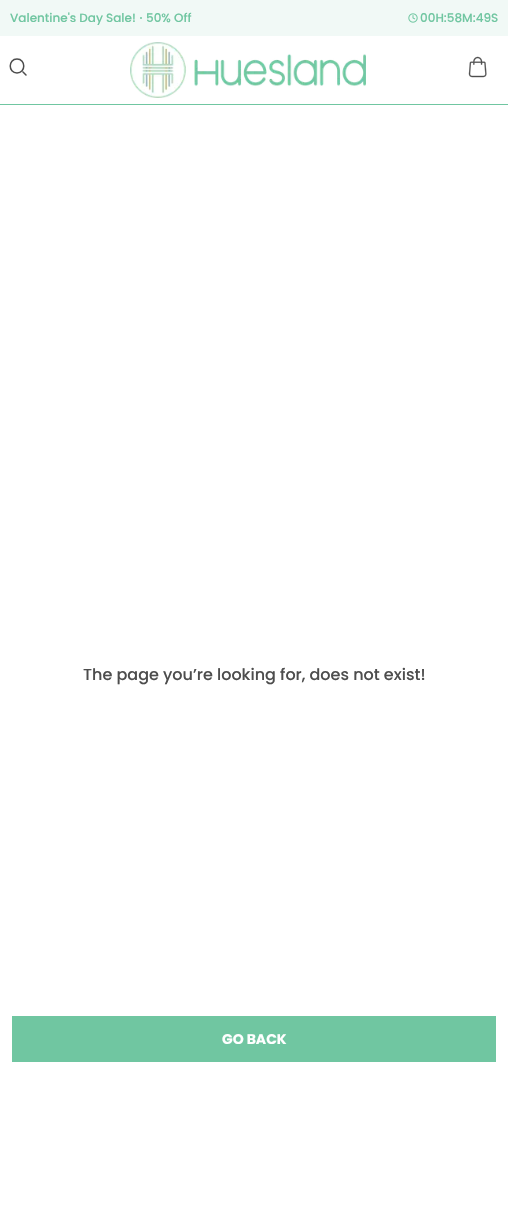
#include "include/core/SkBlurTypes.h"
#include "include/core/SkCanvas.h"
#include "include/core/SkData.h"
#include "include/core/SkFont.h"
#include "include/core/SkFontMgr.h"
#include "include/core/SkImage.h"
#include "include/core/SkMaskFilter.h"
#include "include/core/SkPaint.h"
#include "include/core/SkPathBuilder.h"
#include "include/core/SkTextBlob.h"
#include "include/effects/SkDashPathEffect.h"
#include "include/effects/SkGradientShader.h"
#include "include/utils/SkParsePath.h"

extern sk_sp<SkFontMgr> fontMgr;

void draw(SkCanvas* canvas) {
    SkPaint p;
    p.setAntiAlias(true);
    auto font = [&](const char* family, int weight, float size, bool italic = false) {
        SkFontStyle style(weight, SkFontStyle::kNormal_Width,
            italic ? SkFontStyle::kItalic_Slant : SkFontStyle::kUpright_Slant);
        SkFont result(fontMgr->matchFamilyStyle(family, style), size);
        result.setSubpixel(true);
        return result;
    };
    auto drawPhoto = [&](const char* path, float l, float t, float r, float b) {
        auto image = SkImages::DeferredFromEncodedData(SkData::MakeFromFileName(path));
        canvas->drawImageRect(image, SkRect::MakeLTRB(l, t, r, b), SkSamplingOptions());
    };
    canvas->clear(0xFFFFFFFF);
    p.setColor(0xFF70C6A1);
    canvas->drawRect(SkRect::MakeLTRB(0, 104, 508, 105), p);
    p.setColor(0xFFF1F9F6);
    canvas->drawRect(SkRect::MakeLTRB(0, 0, 508, 36), p);
    auto font1 = font("Poppins", 500, 12);
    p.setColor(0xFF70C6A1);
    canvas->drawString("Valentine's Day Sale!", 10, 22, font1, p);
    canvas->drawCircle(141, 18, 1, p);
    canvas->drawString("50% Off", 146, 22, font1, p);
    drawPhoto("media/1.png", 408, 13, 418, 23);
    canvas->drawString("00H:58M:49S", 420, 22, font1, p);
    p.setStyle(SkPaint::kStroke_Style);
    p.setStrokeWidth(1.5f);
    p.setStrokeCap(SkPaint::kRound_Cap);
    p.setStrokeJoin(SkPaint::kRound_Join);
    p.setColor(0xFF4D4D4D);
    canvas->drawPath(SkPathBuilder().moveTo(17, 73).cubicTo(26, 73, 26, 59, 17, 59).cubicTo(8, 59, 8, 73, 17, 73).close().moveTo(26, 75).lineTo(23, 72).detach(), p);
    drawPhoto("media/2.png", 130, 42, 366, 98);
    drawPhoto("media/3.png", 468, 56, 487, 78);
    auto font2 = font("Poppins", 500, 16);
    p.setStyle(SkPaint::kFill_Style);
    canvas->drawString("The page you’re looking for, does not exist!", 83, 680, font2, p);
    p.setColor(0xFF70C6A1);
    canvas->drawRect(SkRect::MakeLTRB(12, 1016, 496, 1062), p);
    auto font3 = font("Poppins", 700, 14);
    p.setColor(0xFFFFFFFF);
    canvas->drawString("GO BACK", 222, 1044, font3, p);
}
